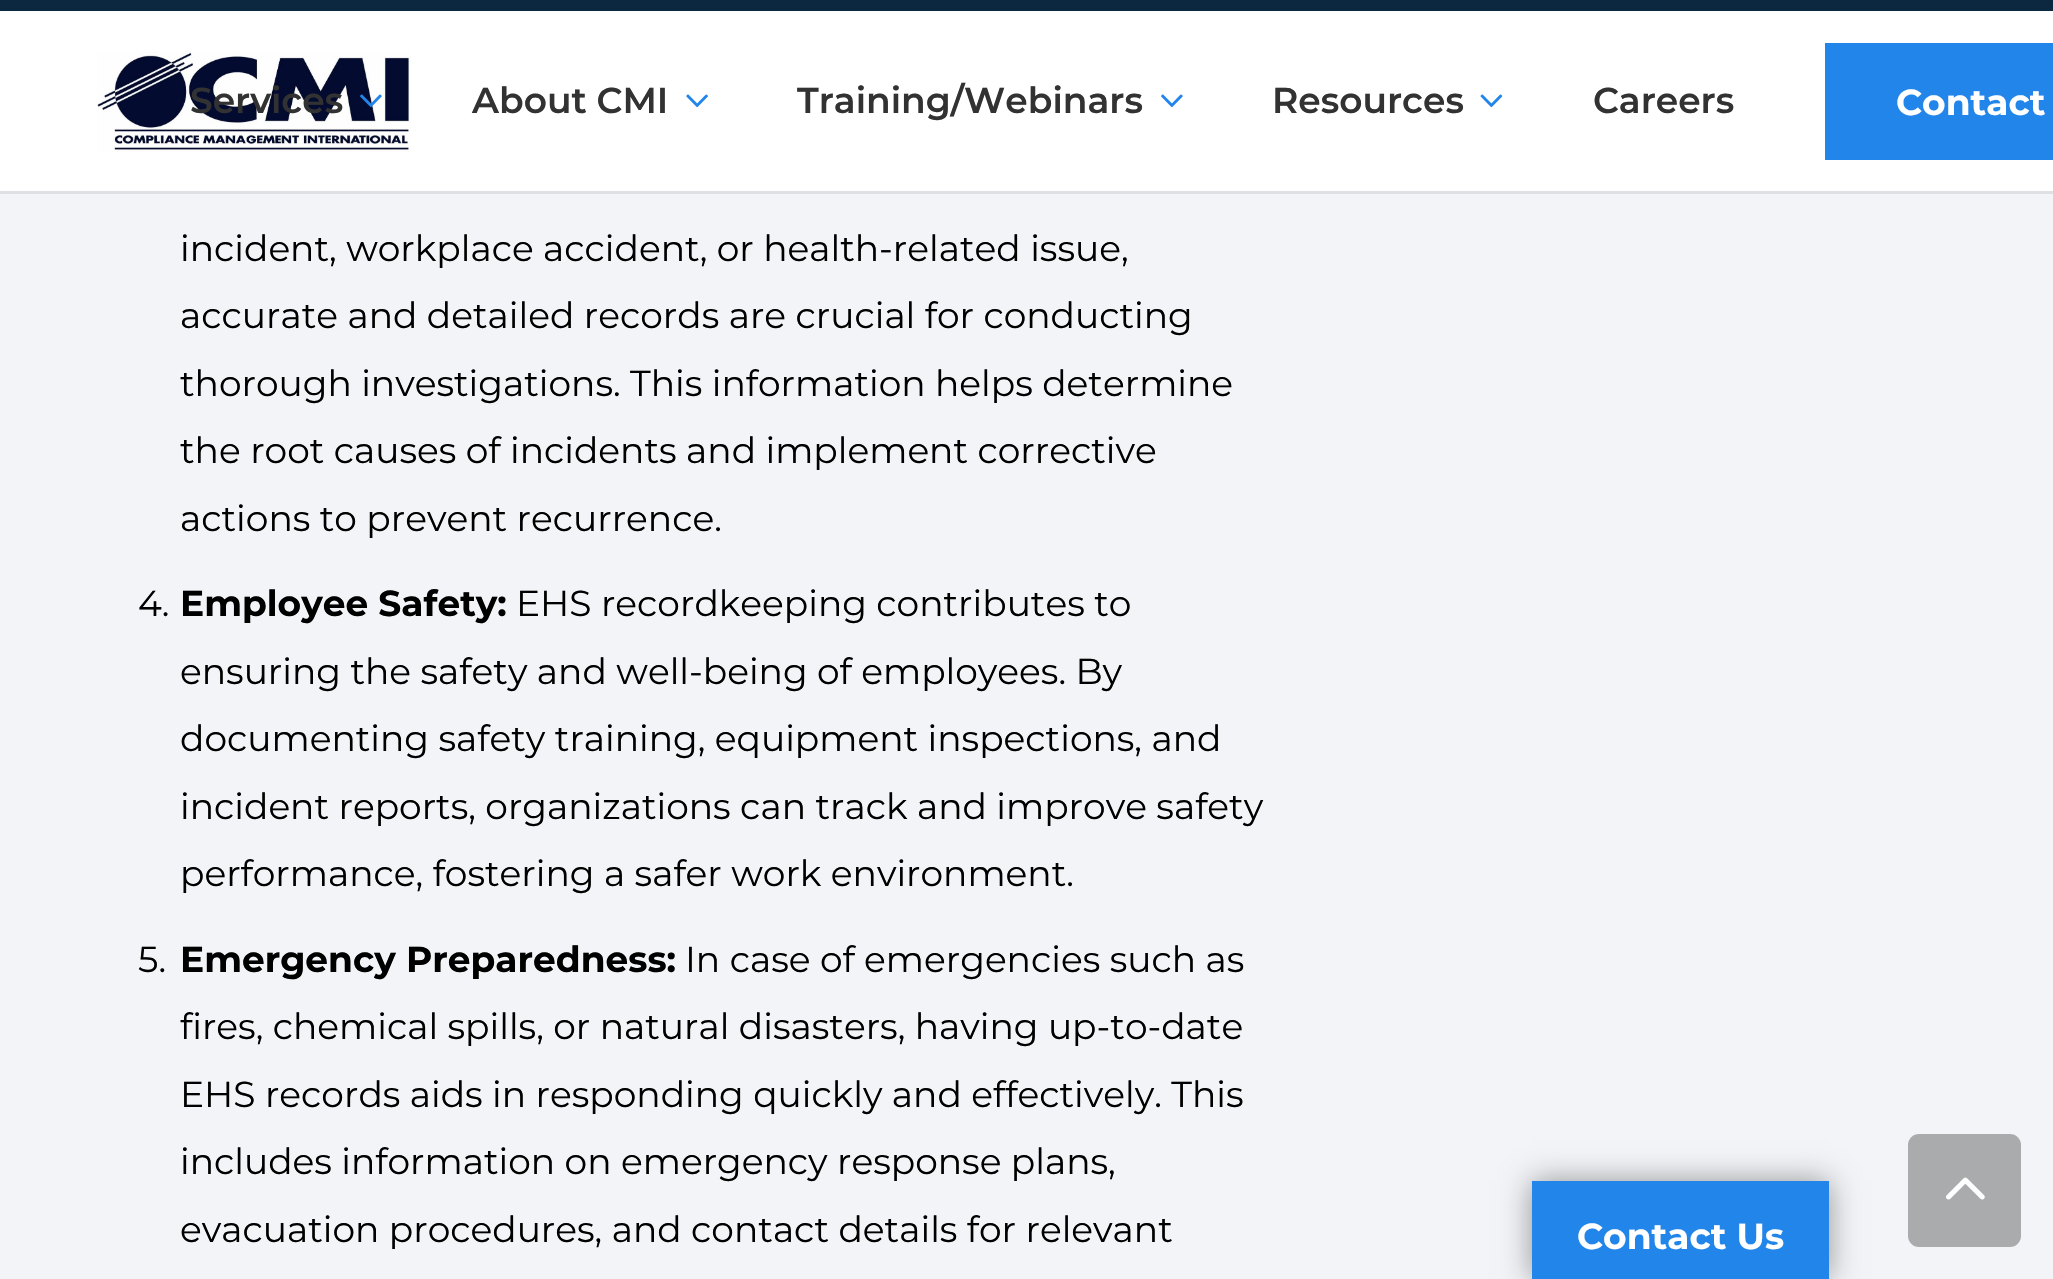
#include "include/core/SkBlurTypes.h"
#include "include/core/SkCanvas.h"
#include "include/core/SkData.h"
#include "include/core/SkFont.h"
#include "include/core/SkFontMgr.h"
#include "include/core/SkImage.h"
#include "include/core/SkMaskFilter.h"
#include "include/core/SkPaint.h"
#include "include/core/SkPathBuilder.h"
#include "include/core/SkTextBlob.h"
#include "include/effects/SkDashPathEffect.h"
#include "include/effects/SkGradientShader.h"
#include "include/utils/SkParsePath.h"

extern sk_sp<SkFontMgr> fontMgr;

void draw(SkCanvas* canvas) {
    SkPaint p;
    p.setAntiAlias(true);
    auto font = [&](const char* family, int weight, float size, bool italic = false) {
        SkFontStyle style(weight, SkFontStyle::kNormal_Width,
            italic ? SkFontStyle::kItalic_Slant : SkFontStyle::kUpright_Slant);
        SkFont result(fontMgr->matchFamilyStyle(family, style), size);
        result.setSubpixel(true);
        return result;
    };
    auto drawPhoto = [&](const char* path, float l, float t, float r, float b) {
        auto image = SkImages::DeferredFromEncodedData(SkData::MakeFromFileName(path));
        canvas->drawImageRect(image, SkRect::MakeLTRB(l, t, r, b), SkSamplingOptions());
    };
    canvas->clear(0xFFF2F4F7);
    {
        const struct { float l, t, r, b; SkColor color; } items[] = {
            {0, 0, 2053, 11, 0xFF0C2840},
            {0, 191, 2053, 194, 0x14000000},
            {0, 11, 2053, 191, 0xFFFFFFFF},
        };
        for (auto [l, t, r, b, color] : items) {
            p.setColor(color);
            canvas->drawRect(SkRect::MakeLTRB(l, t, r, b), p);
        }
    }
    drawPhoto("media/1.png", 97, 51, 411, 152);
    auto font1 = font("Montserrat", 600, 36);
    p.setColor(0xFF323232);
    canvas->drawString("Services", 190, 113, font1, p);
    drawPhoto("media/2.png", 360, 94, 382, 108);
    canvas->drawString("About CMI", 472, 113, font1, p);
    drawPhoto("media/3.png", 686, 94, 708, 108);
    canvas->drawString("Training/Webinars", 797, 113, font1, p);
    drawPhoto("media/4.png", 1161, 94, 1183, 108);
    canvas->drawString("Resources", 1272, 113, font1, p);
    drawPhoto("media/5.png", 1480, 94, 1503, 108);
    canvas->drawString("Careers", 1593, 113, font1, p);
    p.setColor(0xFF2285E9);
    canvas->drawRect(SkRect::MakeLTRB(1825, 43, 2053, 160), p);
    auto font2 = font("Montserrat", 700, 36);
    p.setColor(0xFFFFFFFF);
    canvas->drawString("Contact", 1896, 115, font2, p);
    auto font3 = font("Montserrat", 400, 36);
    p.setColor(0xFF000000);
    {
        const struct { const char* s; float x, y; } items[] = {
            {"incident, workplace accident, or health-related issue,", 180, 261},
            {"accurate and detailed records are crucial for conducting", 180, 328},
            {"thorough investigations. This information helps determine", 180, 396},
            {"the root causes of incidents and implement corrective", 180, 463},
            {"actions to prevent recurrence.", 180, 531},
            {"4.", 138, 616},
        };
        for (auto [s, x, y] : items) {
            canvas->drawString(s, x, y, font3, p);
        }
    }
    canvas->drawString("Employee Safety:", 180, 616, font2, p);
    {
        const struct { const char* s; float x, y; } items[] = {
            {"EHS recordkeeping contributes to", 516, 616},
            {"ensuring the safety and well-being of employees. By", 180, 684},
            {"documenting safety training, equipment inspections, and", 180, 751},
            {"incident reports, organizations can track and improve safety", 180, 819},
            {"performance, fostering a safer work environment.", 180, 886},
            {"5.", 138, 972},
        };
        for (auto [s, x, y] : items) {
            canvas->drawString(s, x, y, font3, p);
        }
    }
    canvas->drawString("Emergency Preparedness:", 180, 972, font2, p);
    {
        const struct { const char* s; float x, y; } items[] = {
            {"In case of emergencies such as", 685, 972},
            {"fires, chemical spills, or natural disasters, having up-to-date", 180, 1039},
            {"EHS records aids in responding quickly and effectively. This", 180, 1107},
            {"includes information on emergency response plans,", 180, 1174},
            {"evacuation procedures, and contact details for relevant", 180, 1242},
        };
        for (auto [s, x, y] : items) {
            canvas->drawString(s, x, y, font3, p);
        }
    }
    p.setColor(0x66000000);
    p.setMaskFilter(SkMaskFilter::MakeBlur(kNormal_SkBlurStyle, 14.5f));
    canvas->drawRect(SkRect::MakeLTRB(1532, 1181, 1829, 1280), p);
    p.setMaskFilter(nullptr);
    p.setColor(0xFF2285E9);
    canvas->drawRect(SkRect::MakeLTRB(1532, 1181, 1829, 1279), p);
    p.setColor(0xFFFFFFFF);
    canvas->drawString("Contact Us", 1577, 1249, font2, p);
    p.setColor(0xFFA9ABAD);
    canvas->drawRoundRect(SkRect::MakeLTRB(1908, 1134, 2021, 1247), 11, 11, p);
    drawPhoto("media/6.png", 1946, 1177, 1985, 1200);
}
